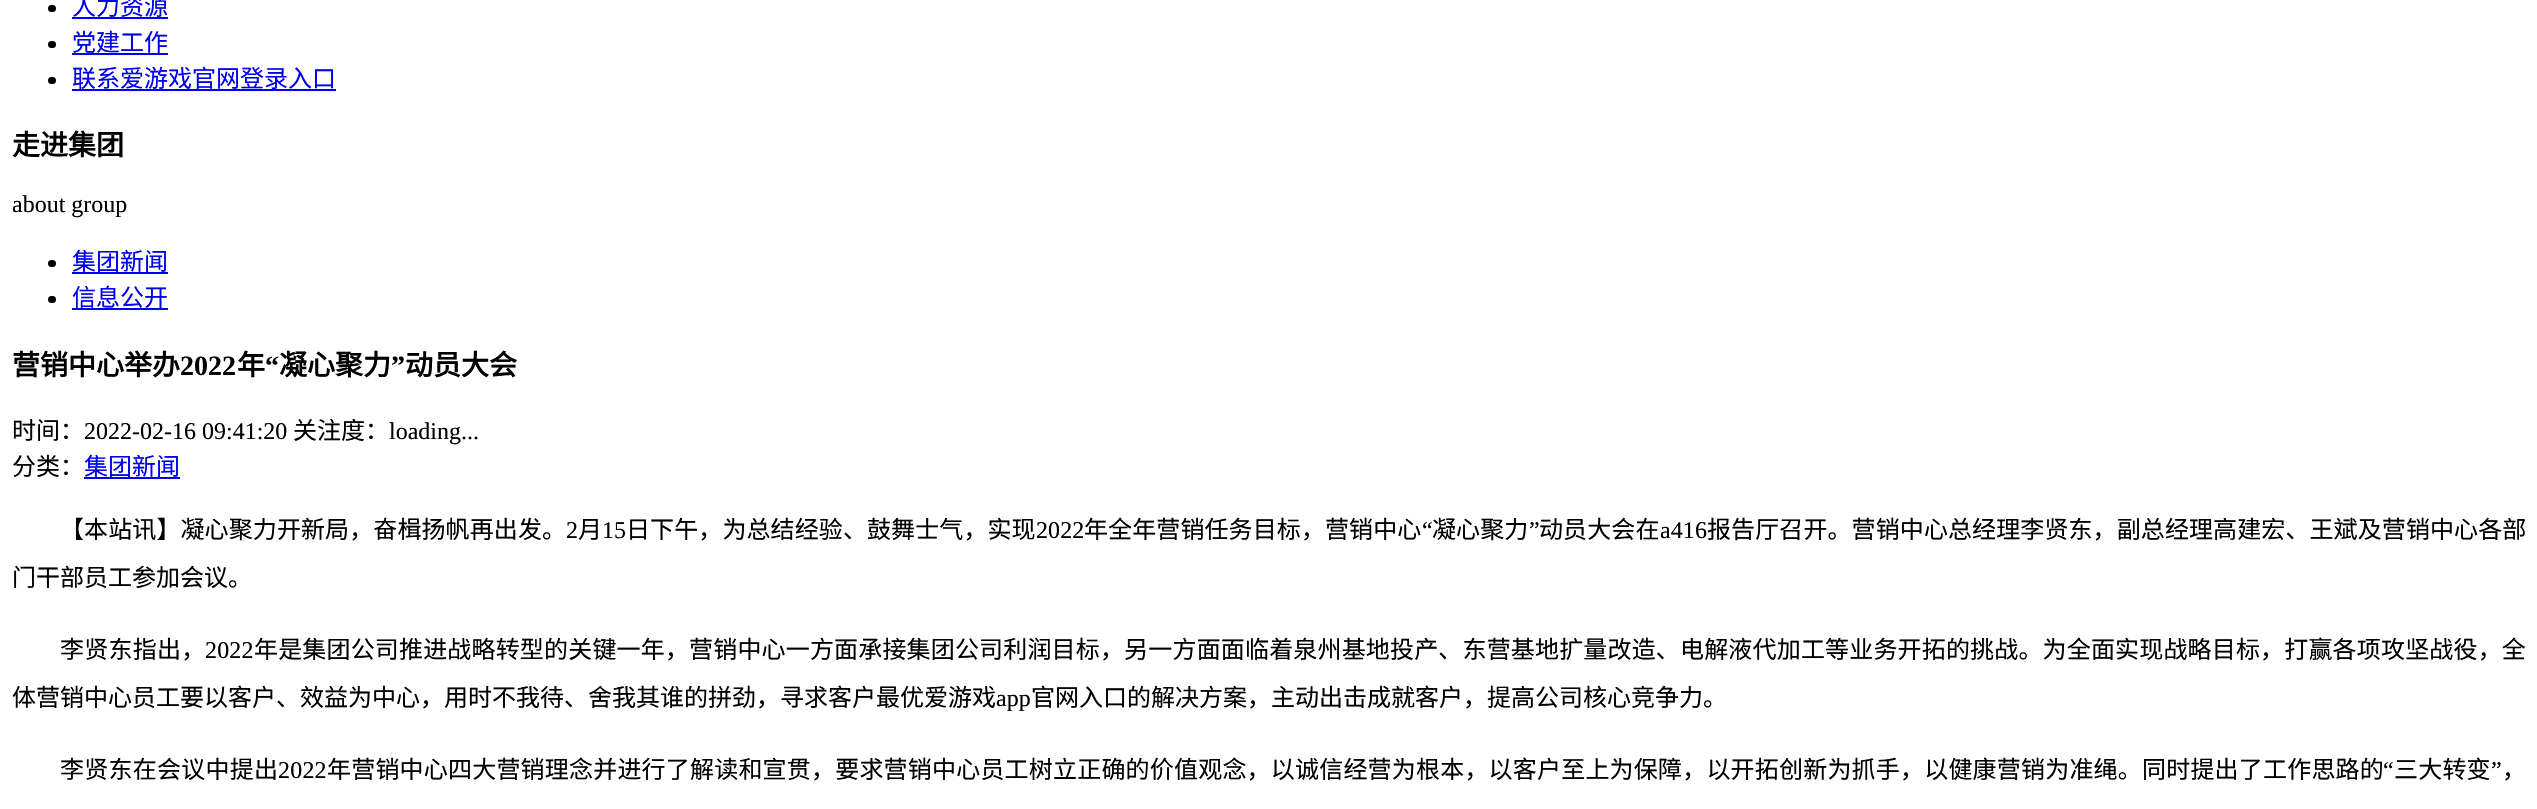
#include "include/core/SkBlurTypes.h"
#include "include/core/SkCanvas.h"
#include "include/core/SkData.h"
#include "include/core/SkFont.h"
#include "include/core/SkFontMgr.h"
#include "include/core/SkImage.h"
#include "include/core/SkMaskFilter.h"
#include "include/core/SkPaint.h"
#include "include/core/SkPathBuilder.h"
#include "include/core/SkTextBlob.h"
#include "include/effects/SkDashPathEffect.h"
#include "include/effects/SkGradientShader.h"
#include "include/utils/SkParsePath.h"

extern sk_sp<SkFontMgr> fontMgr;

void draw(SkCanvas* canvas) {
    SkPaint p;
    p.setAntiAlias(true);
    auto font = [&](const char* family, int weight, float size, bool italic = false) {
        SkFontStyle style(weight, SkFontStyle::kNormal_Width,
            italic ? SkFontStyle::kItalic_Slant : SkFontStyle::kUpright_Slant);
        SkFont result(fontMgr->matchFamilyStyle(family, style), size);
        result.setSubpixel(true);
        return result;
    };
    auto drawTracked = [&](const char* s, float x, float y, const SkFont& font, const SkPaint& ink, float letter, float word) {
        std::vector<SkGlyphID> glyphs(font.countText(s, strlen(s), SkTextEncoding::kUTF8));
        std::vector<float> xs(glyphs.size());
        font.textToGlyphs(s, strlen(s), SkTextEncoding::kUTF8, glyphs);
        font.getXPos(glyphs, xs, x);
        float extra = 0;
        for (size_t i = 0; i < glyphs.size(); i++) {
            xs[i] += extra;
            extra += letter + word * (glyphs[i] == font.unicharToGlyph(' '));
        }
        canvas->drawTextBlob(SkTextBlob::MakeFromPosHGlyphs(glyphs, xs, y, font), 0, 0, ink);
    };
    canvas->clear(0xFFFFFFFF);
    p.setColor(0xFF000000);
    canvas->drawRoundRect(SkRect::MakeLTRB(48, 5, 56, 12), 3.5f, 3.5f, p);
    auto font1 = font("Noto Sans CJK SC", 400, 24);
    p.setColor(0xFF0000EE);
    canvas->drawString("人力资源", 72, 15, font1, p);
    canvas->drawRect(SkRect::MakeLTRB(72, 17, 168, 19), p);
    p.setColor(0xFF000000);
    canvas->drawRoundRect(SkRect::MakeLTRB(48, 41, 56, 48), 3.5f, 3.5f, p);
    p.setColor(0xFF0000EE);
    canvas->drawString("党建工作", 72, 51, font1, p);
    canvas->drawRect(SkRect::MakeLTRB(72, 53, 168, 55), p);
    p.setColor(0xFF000000);
    canvas->drawRoundRect(SkRect::MakeLTRB(48, 77, 56, 84), 3.5f, 3.5f, p);
    p.setColor(0xFF0000EE);
    canvas->drawRect(SkRect::MakeLTRB(72, 89, 336, 91), p);
    canvas->drawString("联系爱游戏官网登录入口", 72, 87, font1, p);
    auto font2 = font("Noto Sans CJK SC", 700, 28);
    p.setColor(0xFF000000);
    canvas->drawString("走进集团", 12, 155, font2, p);
    auto font3 = font("Liberation Serif", 400, 24);
    canvas->drawString("about group", 12, 212, font3, p);
    canvas->drawRoundRect(SkRect::MakeLTRB(48, 260, 56, 267), 3.5f, 3.5f, p);
    p.setColor(0xFF0000EE);
    canvas->drawString("集团新闻", 72, 270, font1, p);
    canvas->drawRect(SkRect::MakeLTRB(72, 272, 168, 274), p);
    p.setColor(0xFF000000);
    canvas->drawRoundRect(SkRect::MakeLTRB(48, 296, 56, 303), 3.5f, 3.5f, p);
    p.setColor(0xFF0000EE);
    canvas->drawString("信息公开", 72, 306, font1, p);
    canvas->drawRect(SkRect::MakeLTRB(72, 308, 168, 310), p);
    p.setColor(0xFF000000);
    canvas->drawString("营销中心举办", 12, 375, font2, p);
    auto font4 = font("Liberation Serif", 700, 28);
    canvas->drawString("2022", 180, 375, font4, p);
    canvas->drawString("年", 237, 375, font2, p);
    canvas->drawString("“", 265, 375, font4, p);
    canvas->drawString("凝心聚力", 279, 375, font2, p);
    canvas->drawString("”", 391, 375, font4, p);
    canvas->drawString("动员大会", 405, 375, font2, p);
    canvas->drawString("时间：", 12, 439, font1, p);
    canvas->drawString("2022-02-16 09:41:20", 84, 439, font3, p);
    canvas->drawString("关注度：", 293, 439, font1, p);
    canvas->drawString("loading...", 389, 439, font3, p);
    canvas->drawString("分类：", 12, 475, font1, p);
    p.setColor(0xFF0000EE);
    canvas->drawString("集团新闻", 84, 475, font1, p);
    canvas->drawRect(SkRect::MakeLTRB(84, 477, 180, 479), p);
    p.setColor(0xFF000000);
    drawTracked("【本站讯】凝心聚力开新局，奋楫扬帆再出发。", 60, 538, font1, p, 0.1f, 0);
    drawTracked("2", 566, 538, font3, p, 0.1f, 0);
    drawTracked("月", 578, 538, font1, p, 0.1f, 0);
    drawTracked("15", 602, 538, font3, p, 0.1f, 0);
    drawTracked("日下午，为总结经验、鼓舞士气，实现", 626, 538, font1, p, 0.1f, 0);
    drawTracked("2022", 1036, 538, font3, p, 0.1f, 0);
    drawTracked("年全年营销任务目标，营销中心", 1084, 538, font1, p, 0.1f, 0);
    drawTracked("“", 1422, 538, font3, p, 0.1f, 0);
    drawTracked("凝心聚力", 1432, 538, font1, p, 0.1f, 0);
    drawTracked("”", 1529, 538, font3, p, 0.1f, 0);
    drawTracked("动员大会在", 1539, 538, font1, p, 0.1f, 0);
    drawTracked("a416", 1660, 538, font3, p, 0.1f, 0);
    drawTracked("报告厅召开。营销中心总经理李贤东，副总经理高建宏、王斌及营销中心各部", 1707, 538, font1, p, 0.1f, 0);
    canvas->drawString("门干部员工参加会议。", 12, 586, font1, p);
    drawTracked("李贤东指出，", 60, 658, font1, p, 0.25f, 0);
    drawTracked("2022", 205, 658, font3, p, 0.17f, 0);
    drawTracked("年是集团公司推进战略转型的关键一年，营销中心一方面承接集团公司利润目标，另一方面面临着泉州基地投产、东营基地扩量改造、电解液代加工等业务开拓的挑战。为全面实现战略目标，打赢各项攻坚战役，全", 254, 658, font1, p, 0.17f, 0);
    canvas->drawString("体营销中心员工要以客户、效益为中心，用时不我待、舍我其谁的拼劲，寻求客户最优爱游戏", 12, 706, font1, p);
    canvas->drawString("app", 996, 706, font3, p);
    canvas->drawString("官网入口的解决方案，主动出击成就客户，提高公司核心竞争力。", 1031, 706, font1, p);
    drawTracked("李贤东在会议中提出", 60, 778, font1, p, 0.25f, 0);
    drawTracked("2022", 278, 778, font3, p, 0.2f, 0);
    drawTracked("年营销中心四大营销理念并进行了解读和宣贯，要求营销中心员工树立正确的价值观念，以诚信经营为根本，以客户至上为保障，以开拓创新为抓手，以健康营销为准绳。同时提出了工作思路的", 327, 778, font1, p, 0.2f, 0);
    drawTracked("“", 2383, 778, font3, p, 0.2f, 0);
    drawTracked("三大转变", 2394, 778, font1, p, 0.2f, 0);
    drawTracked("”", 2491, 778, font3, p, 0.2f, 0);
    drawTracked("，", 2502, 778, font1, p, 0.2f, 0);
}
